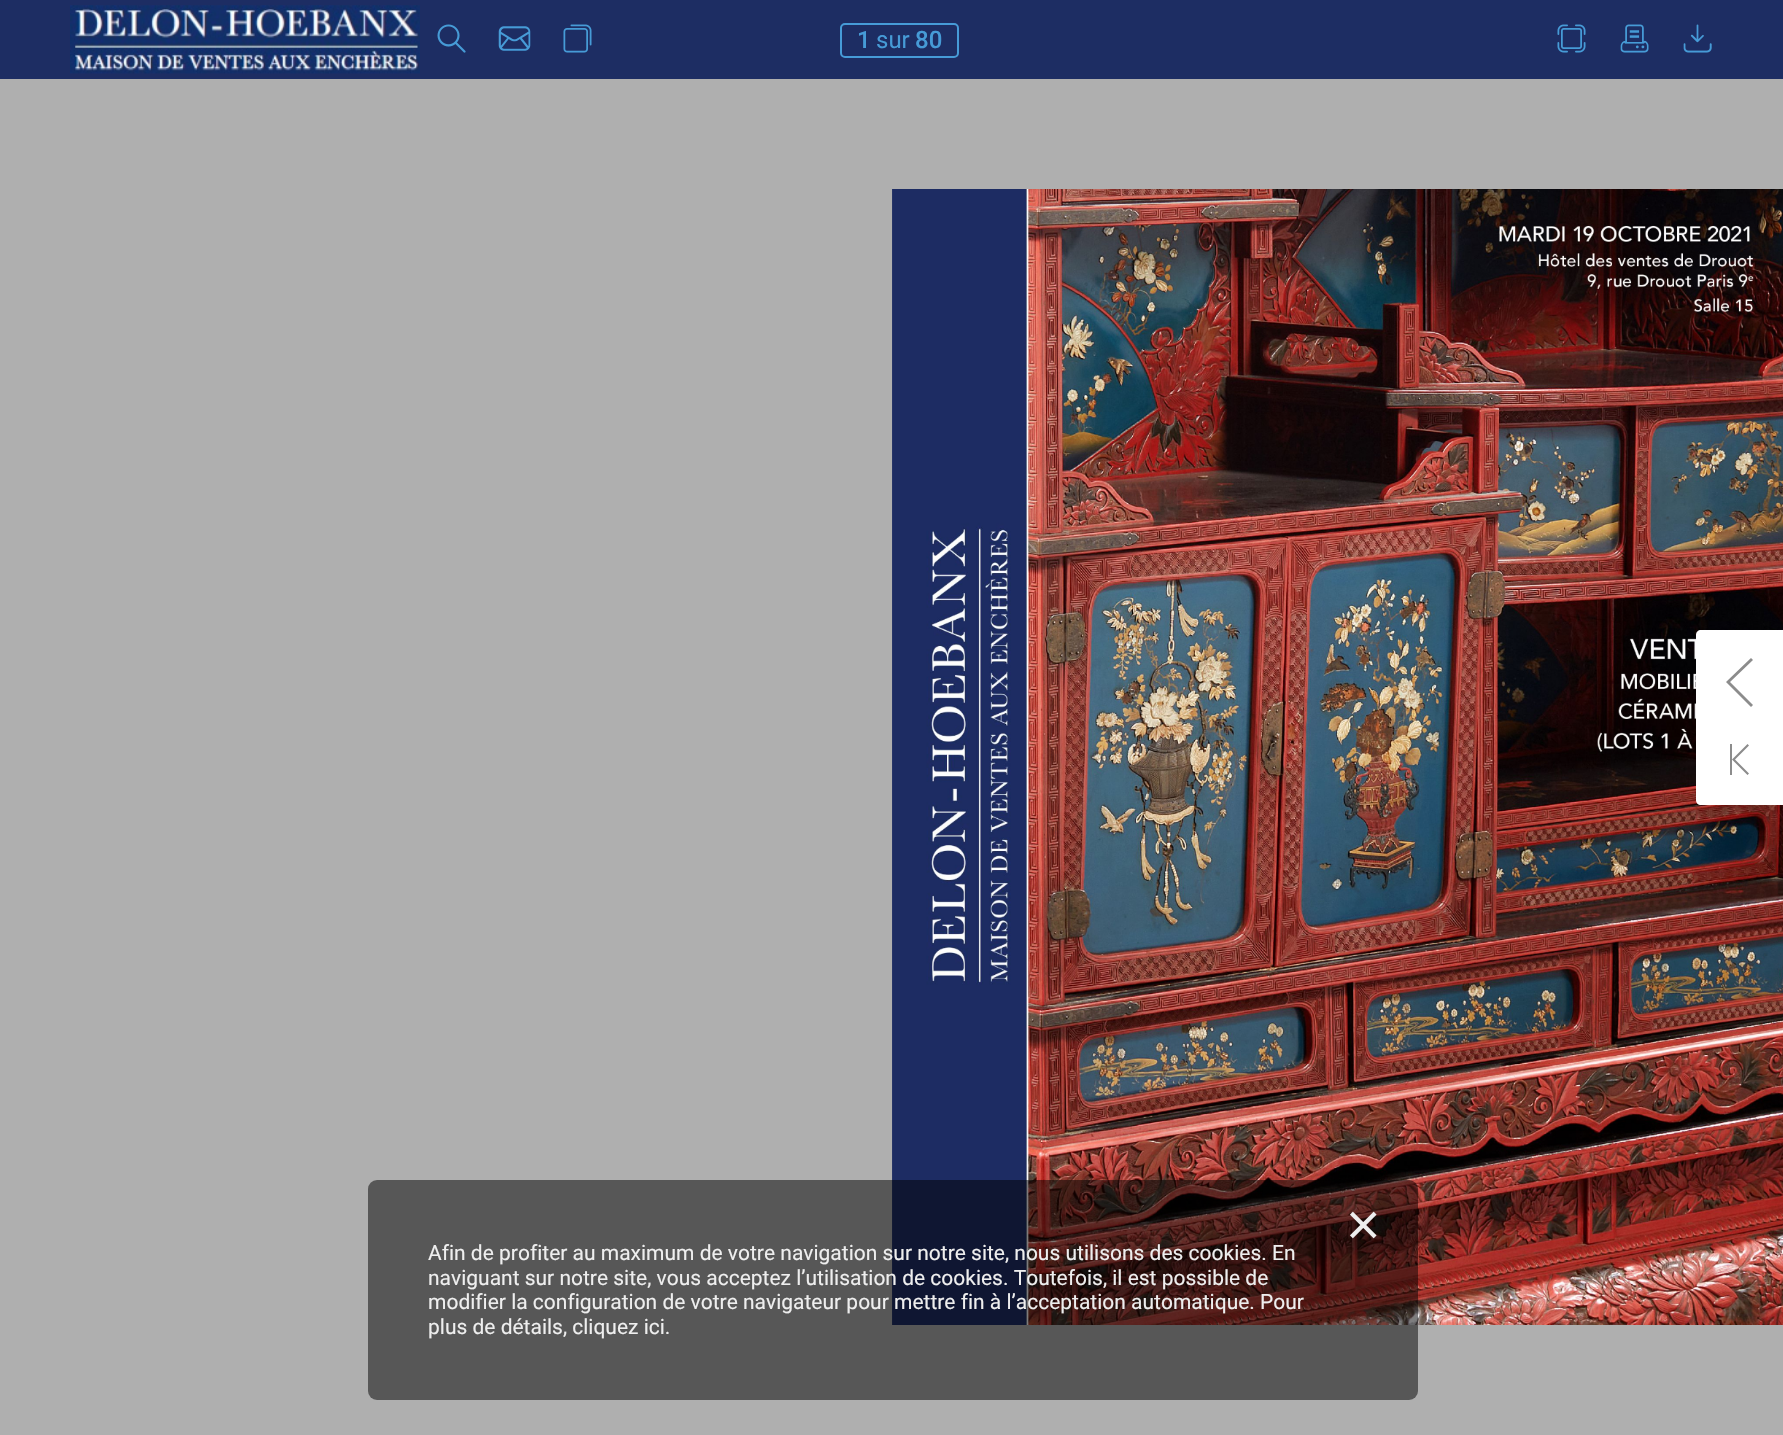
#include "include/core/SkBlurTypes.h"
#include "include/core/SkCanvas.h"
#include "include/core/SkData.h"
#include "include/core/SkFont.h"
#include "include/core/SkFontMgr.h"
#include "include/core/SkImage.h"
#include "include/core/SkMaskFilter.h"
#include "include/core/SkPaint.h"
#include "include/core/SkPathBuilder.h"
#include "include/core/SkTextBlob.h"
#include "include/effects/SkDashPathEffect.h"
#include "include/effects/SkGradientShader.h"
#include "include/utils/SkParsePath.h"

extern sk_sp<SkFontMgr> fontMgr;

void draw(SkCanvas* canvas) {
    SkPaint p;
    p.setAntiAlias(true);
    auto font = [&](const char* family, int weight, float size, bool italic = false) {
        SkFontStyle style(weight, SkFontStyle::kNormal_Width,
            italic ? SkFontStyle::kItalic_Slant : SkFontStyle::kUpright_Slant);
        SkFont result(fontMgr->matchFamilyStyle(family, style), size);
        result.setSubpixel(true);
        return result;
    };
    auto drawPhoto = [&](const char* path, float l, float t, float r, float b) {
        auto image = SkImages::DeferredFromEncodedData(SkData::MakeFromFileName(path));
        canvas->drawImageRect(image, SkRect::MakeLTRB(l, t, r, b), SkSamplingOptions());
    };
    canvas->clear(0xFFAFAFAF);
    p.setColor(0xFF1D2D63);
    canvas->drawRect(SkRect::MakeLTRB(0, 0, 1783, 79), p);
    drawPhoto("media/1.png", 70, 5, 420, 74);
    drawPhoto("media/2.png", 437, 24, 466, 53);
    drawPhoto("media/3.png", 498, 26, 531, 51);
    drawPhoto("media/4.png", 563, 24, 592, 53);
    p.setStyle(SkPaint::kStroke_Style);
    p.setStrokeWidth(2);
    p.setColor(0xFF469BD7);
    canvas->drawRoundRect(SkRect::MakeLTRB(841, 24, 958, 57), 4, 4, p);
    auto font1 = font("Roboto", 500, 24);
    p.setStyle(SkPaint::kFill_Style);
    canvas->drawString("1", 857, 48, font1, p);
    auto font2 = font("Roboto", 400, 24);
    canvas->drawString("sur", 876, 48, font2, p);
    canvas->drawString("80", 915, 48, font1, p);
    drawPhoto("media/5.png", 1557, 24, 1586, 53);
    drawPhoto("media/6.png", 1620, 24, 1649, 53);
    drawPhoto("media/7.png", 1683, 24, 1712, 53);
    drawPhoto("media/8.png", 892, 189, 1783, 1325);
    p.setColor(0xFFFFFFFF);
    canvas->drawPath(SkPathBuilder().moveTo(1701, 630).lineTo(1783, 630).lineTo(1783, 805).lineTo(1701, 805).cubicTo(1698, 805, 1696, 803, 1696, 800).lineTo(1696, 635).cubicTo(1696, 632, 1698, 630, 1701, 630).close().detach(), p);
    p.setColor(0xFF8C8C8C);
    canvas->drawPath(SkPathBuilder().moveTo(1751, 658).lineTo(1726, 682).lineTo(1751, 707).lineTo(1753, 705).lineTo(1730, 682).lineTo(1753, 660).close().detach(), p);
    canvas->drawPath(SkPathBuilder().moveTo(1749, 745.5f).lineTo(1747.5f, 744).lineTo(1732, 759.5f).lineTo(1747.5f, 775).lineTo(1749, 773.5f).lineTo(1735, 759.5f).close().moveTo(1730, 744).lineTo(1732, 744).lineTo(1732, 775).lineTo(1730, 775).close().detach(), p);
    p.setColor(0x80000000);
    canvas->drawRoundRect(SkRect::MakeLTRB(368, 1180, 1418, 1400), 9, 9, p);
    drawPhoto("media/9.png", 1350, 1211, 1377, 1239);
    auto font3 = font("Roboto", 400, 21);
    p.setColor(0xFFEEEEEE);
    {
        const struct { const char* s; float x, y; } items[] = {
            {"Afin de profiter au maximum de votre navigation sur notre site, nous utilisons des cookies. En", 428, 1260},
            {"naviguant sur notre site, vous acceptez l’utilisation de cookies. Toutefois, il est possible de", 428, 1285},
            {"modifier la configuration de votre navigateur pour mettre fin à l’acceptation automatique. Pour", 428, 1309},
            {"plus de détails, cliquez ici.", 428, 1334},
        };
        for (auto [s, x, y] : items) {
            canvas->drawString(s, x, y, font3, p);
        }
    }
}
